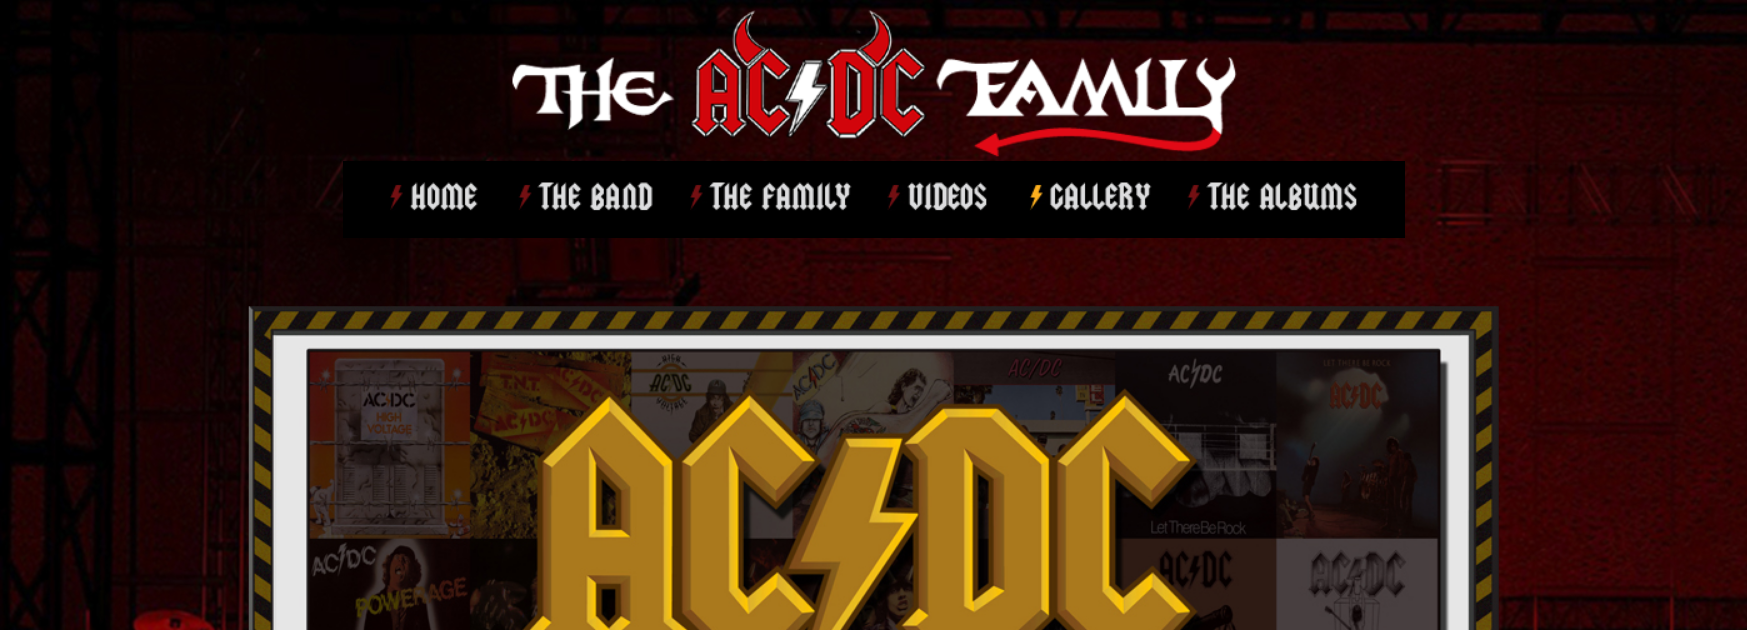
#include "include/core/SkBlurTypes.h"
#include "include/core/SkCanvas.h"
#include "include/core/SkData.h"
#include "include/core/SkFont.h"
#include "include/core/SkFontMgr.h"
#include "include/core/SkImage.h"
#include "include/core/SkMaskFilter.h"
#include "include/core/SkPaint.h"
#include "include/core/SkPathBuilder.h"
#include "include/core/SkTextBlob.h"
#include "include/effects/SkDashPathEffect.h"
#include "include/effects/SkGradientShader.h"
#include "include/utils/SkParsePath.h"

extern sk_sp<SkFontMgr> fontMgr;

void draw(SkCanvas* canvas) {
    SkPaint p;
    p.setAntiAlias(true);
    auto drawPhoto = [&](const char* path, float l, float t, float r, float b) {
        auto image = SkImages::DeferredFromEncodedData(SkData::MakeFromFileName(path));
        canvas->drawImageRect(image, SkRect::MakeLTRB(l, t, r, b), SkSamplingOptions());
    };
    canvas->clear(0xFFFFFFFF);
    drawPhoto("media/1.png", 0, 0, 1747, 630);
    drawPhoto("media/2.png", 512, 10, 1237, 157);
    p.setColor(0xFF000000);
    canvas->drawRect(SkRect::MakeLTRB(343, 161, 1405, 238), p);
    drawPhoto("media/3.png", 390, 182, 478, 211);
    drawPhoto("media/4.png", 518, 182, 653, 211);
    drawPhoto("media/5.png", 690, 182, 852, 211);
    drawPhoto("media/6.png", 887, 182, 987, 211);
    drawPhoto("media/7.png", 1029, 182, 1152, 211);
    drawPhoto("media/8.png", 1187, 182, 1357, 211);
    drawPhoto("media/9.png", 248, 306, 1499, 630);
}
